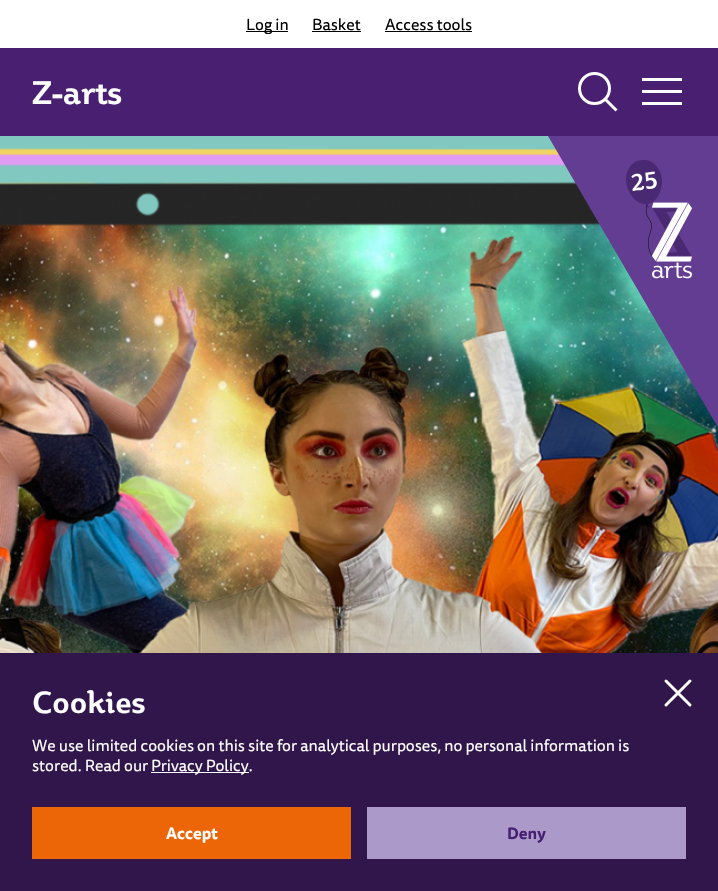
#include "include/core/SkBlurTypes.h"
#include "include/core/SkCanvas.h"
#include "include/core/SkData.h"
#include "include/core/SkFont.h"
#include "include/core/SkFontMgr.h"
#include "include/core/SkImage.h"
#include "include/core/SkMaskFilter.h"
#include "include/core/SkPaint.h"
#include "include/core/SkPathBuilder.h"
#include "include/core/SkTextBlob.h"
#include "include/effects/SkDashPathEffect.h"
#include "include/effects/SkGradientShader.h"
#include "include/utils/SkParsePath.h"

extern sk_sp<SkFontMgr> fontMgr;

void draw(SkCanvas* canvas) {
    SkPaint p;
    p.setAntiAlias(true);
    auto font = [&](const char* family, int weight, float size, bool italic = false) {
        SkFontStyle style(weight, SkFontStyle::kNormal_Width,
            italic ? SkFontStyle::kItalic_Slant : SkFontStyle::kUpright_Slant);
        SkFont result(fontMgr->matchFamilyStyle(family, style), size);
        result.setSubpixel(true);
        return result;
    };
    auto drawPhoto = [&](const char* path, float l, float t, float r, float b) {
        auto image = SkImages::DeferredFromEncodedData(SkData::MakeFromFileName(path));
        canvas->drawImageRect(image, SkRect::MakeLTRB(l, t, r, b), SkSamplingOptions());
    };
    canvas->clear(0xFFFFFFFF);
    p.setColor(0xFF000000);
    canvas->drawRect(SkRect::MakeLTRB(246, 31, 288, 32), p);
    auto font1 = font("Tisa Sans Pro", 400, 16);
    canvas->drawString("Log in", 246, 30, font1, p);
    canvas->drawString("Basket", 312, 30, font1, p);
    canvas->drawRect(SkRect::MakeLTRB(312, 31, 361, 32), p);
    canvas->drawString("Access tools", 385, 30, font1, p);
    canvas->drawRect(SkRect::MakeLTRB(385, 31, 472, 32), p);
    p.setColor(0xFF481F71);
    canvas->drawRect(SkRect::MakeLTRB(0, 48, 718, 136), p);
    auto font2 = font("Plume", 700, 32);
    p.setColor(0xFFFFFFFF);
    canvas->drawString("Z-arts", 32, 104, font2, p);
    p.setStyle(SkPaint::kStroke_Style);
    p.setStrokeWidth(3);
    canvas->drawCircle(594.5f, 88.5f, 15, p);
    canvas->drawPath(SkPathBuilder().moveTo(605, 99).lineTo(616.5f, 110.5f).detach(), p);
    p.setStyle(SkPaint::kFill_Style);
    {
        const struct { float l, t, r, b; SkColor color; } items[] = {
            {642, 78, 682, 81, 0xFFFFFFFF},
            {642, 102, 682, 105, 0xFFFFFFFF},
            {642, 90, 682, 93, 0xFFFFFFFF},
        };
        for (auto [l, t, r, b, color] : items) {
            p.setColor(color);
            canvas->drawRect(SkRect::MakeLTRB(l, t, r, b), p);
        }
    }
    drawPhoto("media/2.png", 0, 136, 718, 653);
    p.setColor(0xFF623D91);
    canvas->drawPath(SkPathBuilder().moveTo(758, 136).lineTo(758, 496).lineTo(548, 136).close().detach(), p);
    drawPhoto("media/1.png", 626, 159, 692, 279);
    p.setColor(0xFF31164B);
    canvas->drawRect(SkRect::MakeLTRB(0, 653, 718, 891), p);
    auto font3 = font("Plume", 700, 30);
    p.setColor(0xFFFFFFFF);
    canvas->drawString("Cookies", 32, 713, font3, p);
    canvas->drawString("We use limited cookies on this site for analytical purposes, no personal information is", 32, 751, font1, p);
    canvas->drawString("stored. Read our", 32, 771, font1, p);
    canvas->drawRect(SkRect::MakeLTRB(151, 772, 249, 773), p);
    canvas->drawString("Privacy Policy.", 151, 771, font1, p);
    p.setStyle(SkPaint::kStroke_Style);
    p.setStrokeCap(SkPaint::kRound_Cap);
    p.setStrokeJoin(SkPaint::kRound_Join);
    canvas->drawPath(SkPathBuilder().moveTo(666, 705).lineTo(690, 681).moveTo(666, 681).lineTo(690, 705).detach(), p);
    p.setStyle(SkPaint::kFill_Style);
    p.setColor(0xFFEC6608);
    canvas->drawRect(SkRect::MakeLTRB(32, 807, 351, 859), p);
    auto font4 = font("Tisa Sans Pro", 700, 16);
    p.setColor(0xFFFFFFFF);
    canvas->drawString("Accept", 166, 839, font4, p);
    p.setColor(0xFFAB99C9);
    canvas->drawRect(SkRect::MakeLTRB(367, 807, 686, 859), p);
    p.setColor(0xFF481F71);
    canvas->drawString("Deny", 507, 839, font4, p);
}
